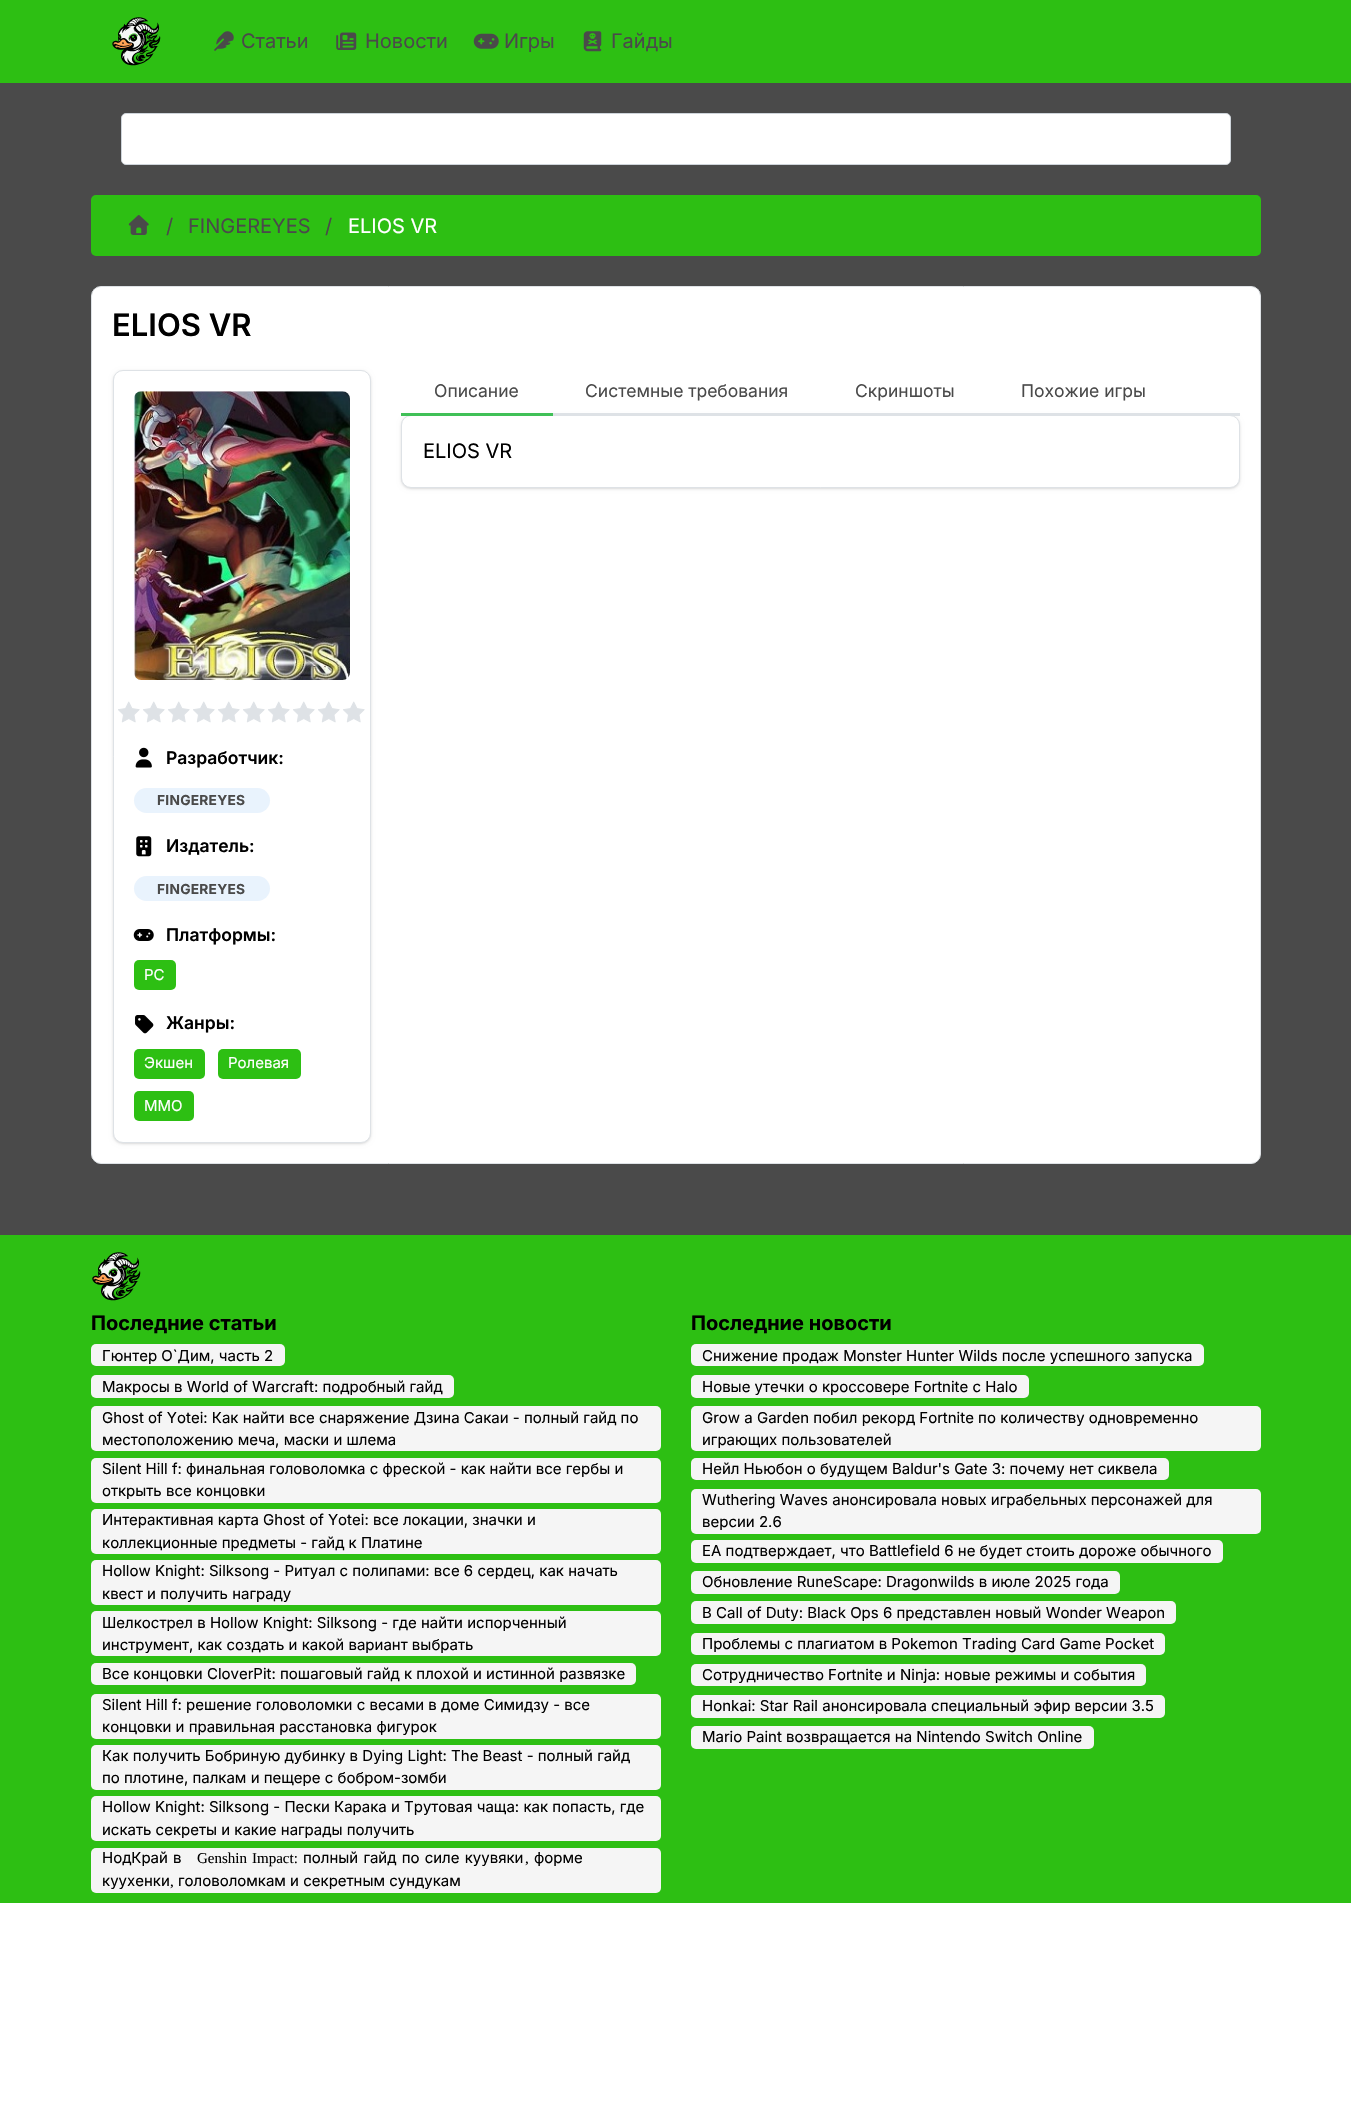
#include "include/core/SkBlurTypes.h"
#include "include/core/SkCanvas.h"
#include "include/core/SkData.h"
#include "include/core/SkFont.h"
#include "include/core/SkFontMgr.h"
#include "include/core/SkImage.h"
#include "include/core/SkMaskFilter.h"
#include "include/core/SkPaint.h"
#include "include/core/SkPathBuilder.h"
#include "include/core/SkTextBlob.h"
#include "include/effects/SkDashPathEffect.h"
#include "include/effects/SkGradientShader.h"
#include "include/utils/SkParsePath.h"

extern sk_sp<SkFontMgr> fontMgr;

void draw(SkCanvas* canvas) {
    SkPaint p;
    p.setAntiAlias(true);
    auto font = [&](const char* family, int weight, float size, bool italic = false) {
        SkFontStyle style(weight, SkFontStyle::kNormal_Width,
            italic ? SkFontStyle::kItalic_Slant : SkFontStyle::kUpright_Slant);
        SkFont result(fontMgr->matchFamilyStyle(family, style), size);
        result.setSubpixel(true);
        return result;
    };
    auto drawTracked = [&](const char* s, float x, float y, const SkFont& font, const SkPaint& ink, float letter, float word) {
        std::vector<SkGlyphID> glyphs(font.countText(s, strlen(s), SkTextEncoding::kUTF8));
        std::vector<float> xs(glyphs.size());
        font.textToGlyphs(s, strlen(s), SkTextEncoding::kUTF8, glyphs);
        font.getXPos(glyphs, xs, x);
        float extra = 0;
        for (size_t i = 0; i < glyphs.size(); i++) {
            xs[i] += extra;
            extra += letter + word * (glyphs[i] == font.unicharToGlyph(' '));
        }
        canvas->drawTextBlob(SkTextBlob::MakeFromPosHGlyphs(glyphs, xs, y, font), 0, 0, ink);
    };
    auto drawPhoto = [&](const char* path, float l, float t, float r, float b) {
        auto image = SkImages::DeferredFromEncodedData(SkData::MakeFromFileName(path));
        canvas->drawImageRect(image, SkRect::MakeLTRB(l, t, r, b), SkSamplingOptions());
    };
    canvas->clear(0xFFFFFFFF);
    p.setColor(0xFF4A4A4A);
    canvas->drawRect(SkRect::MakeLTRB(0, 83, 1351, 1235), p);
    p.setColor(0xFF2DBF13);
    canvas->drawRect(SkRect::MakeLTRB(0, 0, 1351, 83), p);
    drawPhoto("media/1.png", 112, 17, 161, 66);
    drawPhoto("media/2.png", 214, 31, 234, 51);
    auto font1 = font("Inter", 400, 20);
    p.setColor(0xFF4A4A4A);
    canvas->drawString("Статьи", 241, 48, font1, p);
    drawPhoto("media/3.png", 336, 32, 357, 50);
    canvas->drawString("Новости", 365, 48, font1, p);
    drawPhoto("media/4.png", 473, 33, 499, 49);
    canvas->drawString("Игры", 504, 48, font1, p);
    drawPhoto("media/5.png", 583, 31, 602, 52);
    canvas->drawString("Гайды", 611, 48, font1, p);
    p.setColor(0xFFFFFFFF);
    canvas->drawRoundRect(SkRect::MakeLTRB(121.5f, 113.5f, 1230.5f, 164.5f), 4.5f, 4.5f, p);
    p.setStyle(SkPaint::kStroke_Style);
    p.setStrokeWidth(1);
    p.setColor(0xFFCED4DA);
    canvas->drawRoundRect(SkRect::MakeLTRB(121.5f, 113.5f, 1230.5f, 164.5f), 4.5f, 4.5f, p);
    p.setStyle(SkPaint::kFill_Style);
    p.setColor(0xFF2DBF13);
    canvas->drawRoundRect(SkRect::MakeLTRB(91, 195, 1261, 256), 5, 5, p);
    drawPhoto("media/6.png", 128, 215, 149, 235);
    p.setColor(0xFF4A4A4A);
    {
        const struct { const char* s; float x, y; } items[] = {
            {"/", 166, 233},
            {"FINGEREYES", 188, 233},
            {"/", 325, 233},
        };
        for (auto [s, x, y] : items) {
            canvas->drawString(s, x, y, font1, p);
        }
    }
    p.setColor(0xFFFFFFFF);
    canvas->drawString("ELIOS VR", 348, 233, font1, p);
    canvas->drawRoundRect(SkRect::MakeLTRB(91.5f, 286.5f, 1260.5f, 1163.5f), 9.5f, 9.5f, p);
    p.setStyle(SkPaint::kStroke_Style);
    p.setColor(0xFFDEE2E6);
    canvas->drawRoundRect(SkRect::MakeLTRB(91.5f, 286.5f, 1260.5f, 1163.5f), 9.5f, 9.5f, p);
    auto font2 = font("Inter", 600, 31);
    p.setStyle(SkPaint::kFill_Style);
    p.setColor(0xFF000000);
    canvas->drawString("ELIOS VR", 112, 336, font2, p);
    p.setColor(0x1A000000);
    p.setMaskFilter(SkMaskFilter::MakeBlur(kNormal_SkBlurStyle, 1));
    canvas->drawRoundRect(SkRect::MakeLTRB(401, 416, 1240, 489), 10, 10, p);
    p.setMaskFilter(nullptr);
    p.setColor(0x0D000000);
    p.setMaskFilter(SkMaskFilter::MakeBlur(kNormal_SkBlurStyle, 2));
    canvas->drawRoundRect(SkRect::MakeLTRB(401, 416, 1240, 489), 10, 10, p);
    p.setMaskFilter(nullptr);
    p.setColor(0xFFFFFFFF);
    canvas->drawRoundRect(SkRect::MakeLTRB(401.5f, 415.5f, 1239.5f, 487.5f), 9.5f, 9.5f, p);
    p.setStyle(SkPaint::kStroke_Style);
    p.setColor(0xFFDEE2E6);
    canvas->drawRoundRect(SkRect::MakeLTRB(401.5f, 415.5f, 1239.5f, 487.5f), 9.5f, 9.5f, p);
    p.setStyle(SkPaint::kFill_Style);
    p.setColor(0xFF40C057);
    canvas->drawRect(SkRect::MakeLTRB(401, 413, 553, 416), p);
    auto font3 = font("Inter", 400, 17.5f);
    p.setColor(0xFF4A4A4A);
    {
        const struct { const char* s; float x, y; } items[] = {
            {"Описание", 434, 397},
            {"Системные требования", 585, 397},
            {"Скриншоты", 855, 397},
            {"Похожие игры", 1021, 397},
        };
        for (auto [s, x, y] : items) {
            canvas->drawString(s, x, y, font3, p);
        }
    }
    p.setColor(0xFFDEE2E6);
    canvas->drawRect(SkRect::MakeLTRB(553, 413, 1240, 416), p);
    p.setColor(0xFF000000);
    canvas->drawString("ELIOS VR", 423, 458, font1, p);
    p.setColor(0x1A000000);
    p.setMaskFilter(SkMaskFilter::MakeBlur(kNormal_SkBlurStyle, 1));
    canvas->drawRoundRect(SkRect::MakeLTRB(113, 371, 371, 1144), 10, 10, p);
    p.setMaskFilter(nullptr);
    p.setColor(0x0D000000);
    p.setMaskFilter(SkMaskFilter::MakeBlur(kNormal_SkBlurStyle, 2));
    canvas->drawRoundRect(SkRect::MakeLTRB(113, 371, 371, 1144), 10, 10, p);
    p.setMaskFilter(nullptr);
    p.setColor(0xFFFFFFFF);
    canvas->drawRoundRect(SkRect::MakeLTRB(113.5f, 370.5f, 370.5f, 1142.5f), 9.5f, 9.5f, p);
    p.setStyle(SkPaint::kStroke_Style);
    p.setColor(0xFFDEE2E6);
    canvas->drawRoundRect(SkRect::MakeLTRB(113.5f, 370.5f, 370.5f, 1142.5f), 9.5f, 9.5f, p);
    drawPhoto("media/7.png", 133, 391, 350, 680);
    drawPhoto("media/8.png", 118, 701, 140, 723);
    drawPhoto("media/8.png", 143, 701, 165, 723);
    drawPhoto("media/8.png", 168, 701, 190, 723);
    drawPhoto("media/8.png", 193, 701, 215, 723);
    drawPhoto("media/8.png", 218, 701, 240, 723);
    drawPhoto("media/8.png", 243, 701, 265, 723);
    drawPhoto("media/8.png", 268, 701, 290, 723);
    drawPhoto("media/8.png", 293, 701, 315, 723);
    drawPhoto("media/8.png", 318, 701, 340, 723);
    drawPhoto("media/8.png", 343, 701, 365, 723);
    drawPhoto("media/9.png", 135, 747, 152, 768);
    auto font4 = font("Inter", 600, 17.5f);
    p.setStyle(SkPaint::kFill_Style);
    p.setColor(0xFF000000);
    canvas->drawString("Разработчик:", 166, 764, font4, p);
    p.setColor(0xFFE9F3FD);
    canvas->drawRoundRect(SkRect::MakeLTRB(134, 788, 270, 813), 12.5f, 12.5f, p);
    auto font5 = font("Inter", 700, 13.75f);
    p.setColor(0xFF4A4A4A);
    drawTracked("FINGEREYES", 157, 805, font5, p, 0.25f, 0);
    drawPhoto("media/10.png", 136, 836, 152, 857);
    p.setColor(0xFF000000);
    canvas->drawString("Издатель:", 166, 852, font4, p);
    p.setColor(0xFFE9F3FD);
    canvas->drawRoundRect(SkRect::MakeLTRB(134, 876, 270, 901), 12.5f, 12.5f, p);
    p.setColor(0xFF4A4A4A);
    drawTracked("FINGEREYES", 157, 894, font5, p, 0.25f, 0);
    drawPhoto("media/11.png", 133, 929, 154, 941);
    p.setColor(0xFF000000);
    canvas->drawString("Платформы:", 166, 941, font4, p);
    p.setColor(0xFF2DBF13);
    canvas->drawRoundRect(SkRect::MakeLTRB(134, 960, 176, 990), 5, 5, p);
    auto font6 = font("Inter", 400, 15);
    p.setColor(0xFFFFFFFF);
    canvas->drawString("PC", 144, 980, font6, p);
    drawPhoto("media/12.png", 135, 1015, 154, 1034);
    p.setColor(0xFF000000);
    canvas->drawString("Жанры:", 166, 1029, font4, p);
    p.setColor(0xFF2DBF13);
    canvas->drawRoundRect(SkRect::MakeLTRB(134, 1049, 205, 1079), 5, 5, p);
    p.setColor(0xFFFFFFFF);
    canvas->drawString("Экшен", 144, 1068, font6, p);
    p.setColor(0xFF2DBF13);
    canvas->drawRoundRect(SkRect::MakeLTRB(218, 1049, 301, 1079), 5, 5, p);
    p.setColor(0xFFFFFFFF);
    canvas->drawString("Ролевая", 228, 1068, font6, p);
    p.setColor(0xFF2DBF13);
    canvas->drawRoundRect(SkRect::MakeLTRB(134, 1091, 194, 1121), 5, 5, p);
    p.setColor(0xFFFFFFFF);
    canvas->drawString("MMO", 144, 1111, font6, p);
    p.setColor(0xFF2DBF13);
    canvas->drawRect(SkRect::MakeLTRB(0, 1235, 1351, 1903), p);
    drawPhoto("media/13.png", 92, 1252, 141, 1301);
    auto font7 = font("Inter", 700, 20);
    p.setColor(0xFF000000);
    canvas->drawString("Последние статьи", 91, 1330, font7, p);
    p.setColor(0xFFF5F5F5);
    canvas->drawRoundRect(SkRect::MakeLTRB(91, 1344, 285, 1366), 5, 5, p);
    p.setColor(0xFF000000);
    canvas->drawString("Гюнтер О`Дим, часть 2", 102, 1361, font6, p);
    p.setColor(0xFFF5F5F5);
    canvas->drawRoundRect(SkRect::MakeLTRB(91, 1375, 454, 1398), 5, 5, p);
    p.setColor(0xFF000000);
    canvas->drawString("Макросы в World of Warcraft: подробный гайд", 102, 1392, font6, p);
    p.setColor(0xFFF5F5F5);
    canvas->drawRoundRect(SkRect::MakeLTRB(91, 1406, 661, 1451), 5, 5, p);
    p.setColor(0xFF000000);
    canvas->drawString("Ghost of Yotei: Как найти все снаряжение Дзина Сакаи - полный гайд по", 102, 1423, font6, p);
    canvas->drawString("местоположению меча, маски и шлема", 102, 1445, font6, p);
    p.setColor(0xFFF5F5F5);
    canvas->drawRoundRect(SkRect::MakeLTRB(91, 1458, 661, 1503), 5, 5, p);
    p.setColor(0xFF000000);
    canvas->drawString("Silent Hill f: финальная головоломка с фреской - как найти все гербы и", 102, 1474, font6, p);
    canvas->drawString("открыть все концовки", 102, 1496, font6, p);
    p.setColor(0xFFF5F5F5);
    canvas->drawRoundRect(SkRect::MakeLTRB(91, 1509, 661, 1554), 5, 5, p);
    p.setColor(0xFF000000);
    canvas->drawString("Интерактивная карта Ghost of Yotei: все локации, значки и", 102, 1525, font6, p);
    canvas->drawString("коллекционные предметы - гайд к Платине", 102, 1548, font6, p);
    p.setColor(0xFFF5F5F5);
    canvas->drawRoundRect(SkRect::MakeLTRB(91, 1560, 661, 1605), 5, 5, p);
    p.setColor(0xFF000000);
    canvas->drawString("Hollow Knight: Silksong - Ритуал с полипами: все 6 сердец, как начать", 102, 1576, font6, p);
    canvas->drawString("квест и получить награду", 102, 1599, font6, p);
    p.setColor(0xFFF5F5F5);
    canvas->drawRoundRect(SkRect::MakeLTRB(91, 1611, 661, 1656), 5, 5, p);
    p.setColor(0xFF000000);
    canvas->drawString("Шелкострел в Hollow Knight: Silksong - где найти испорченный", 102, 1628, font6, p);
    canvas->drawString("инструмент, как создать и какой вариант выбрать", 102, 1650, font6, p);
    p.setColor(0xFFF5F5F5);
    canvas->drawRoundRect(SkRect::MakeLTRB(91, 1663, 636, 1685), 5, 5, p);
    p.setColor(0xFF000000);
    canvas->drawString("Все концовки CloverPit: пошаговый гайд к плохой и истинной развязке", 102, 1679, font6, p);
    p.setColor(0xFFF5F5F5);
    canvas->drawRoundRect(SkRect::MakeLTRB(91, 1694, 661, 1739), 5, 5, p);
    p.setColor(0xFF000000);
    canvas->drawString("Silent Hill f: решение головоломки с весами в доме Симидзу - все", 102, 1710, font6, p);
    canvas->drawString("концовки и правильная расстановка фигурок", 102, 1732, font6, p);
    p.setColor(0xFFF5F5F5);
    canvas->drawRoundRect(SkRect::MakeLTRB(91, 1745, 661, 1790), 5, 5, p);
    p.setColor(0xFF000000);
    canvas->drawString("Как получить Бобриную дубинку в Dying Light: The Beast - полный гайд", 102, 1761, font6, p);
    canvas->drawString("по плотине, палкам и пещере с бобром-зомби", 102, 1783, font6, p);
    p.setColor(0xFFF5F5F5);
    canvas->drawRoundRect(SkRect::MakeLTRB(91, 1796, 661, 1841), 5, 5, p);
    p.setColor(0xFF000000);
    canvas->drawString("Hollow Knight: Silksong - Пески Карака и Трутовая чаща: как попасть, где", 102, 1812, font6, p);
    canvas->drawString("искать секреты и какие награды получить", 102, 1835, font6, p);
    p.setColor(0xFFF5F5F5);
    canvas->drawRoundRect(SkRect::MakeLTRB(91, 1848, 661, 1893), 5, 5, p);
    p.setColor(0xFF000000);
    drawTracked("Нод‑Край в", 102, 1863, font6, p, 0, 1);
    auto font8 = font("Liberation Serif", 400, 15);
    canvas->drawString("Genshin", 197, 1863, font8, p);
    canvas->drawString("Impact:", 252, 1863, font8, p);
    drawTracked("полный гайд по силе куувяки", 303, 1863, font6, p, 0, 1);
    canvas->drawString(",", 525, 1863, font8, p);
    canvas->drawString("форме", 534, 1863, font6, p);
    canvas->drawString("куухенки", 102, 1886, font6, p);
    canvas->drawString(",", 170, 1886, font8, p);
    canvas->drawString("головоломкам и секретным сундукам", 178, 1886, font6, p);
    canvas->drawString("Последние новости", 691, 1330, font7, p);
    p.setColor(0xFFF5F5F5);
    canvas->drawRoundRect(SkRect::MakeLTRB(691, 1344, 1204, 1366), 5, 5, p);
    p.setColor(0xFF000000);
    canvas->drawString("Снижение продаж Monster Hunter Wilds после успешного запуска", 702, 1361, font6, p);
    p.setColor(0xFFF5F5F5);
    canvas->drawRoundRect(SkRect::MakeLTRB(691, 1375, 1029, 1398), 5, 5, p);
    p.setColor(0xFF000000);
    canvas->drawString("Новые утечки о кроссовере Fortnite с Halo", 702, 1392, font6, p);
    p.setColor(0xFFF5F5F5);
    canvas->drawRoundRect(SkRect::MakeLTRB(691, 1406, 1261, 1451), 5, 5, p);
    p.setColor(0xFF000000);
    canvas->drawString("Grow a Garden побил рекорд Fortnite по количеству одновременно", 702, 1423, font6, p);
    canvas->drawString("играющих пользователей", 702, 1445, font6, p);
    p.setColor(0xFFF5F5F5);
    canvas->drawRoundRect(SkRect::MakeLTRB(691, 1458, 1169, 1480), 5, 5, p);
    p.setColor(0xFF000000);
    canvas->drawString("Нейл Ньюбон о будущем Baldur's Gate 3: почему нет сиквела", 702, 1474, font6, p);
    p.setColor(0xFFF5F5F5);
    canvas->drawRoundRect(SkRect::MakeLTRB(691, 1489, 1261, 1534), 5, 5, p);
    p.setColor(0xFF000000);
    canvas->drawString("Wuthering Waves анонсировала новых играбельных персонажей для", 702, 1505, font6, p);
    canvas->drawString("версии 2.6", 702, 1527, font6, p);
    p.setColor(0xFFF5F5F5);
    canvas->drawRoundRect(SkRect::MakeLTRB(691, 1540, 1223, 1563), 5, 5, p);
    p.setColor(0xFF000000);
    canvas->drawString("EA подтверждает, что Battlefield 6 не будет стоить дороже обычного", 702, 1556, font6, p);
    p.setColor(0xFFF5F5F5);
    canvas->drawRoundRect(SkRect::MakeLTRB(691, 1571, 1120, 1594), 5, 5, p);
    p.setColor(0xFF000000);
    canvas->drawString("Обновление RuneScape: Dragonwilds в июле 2025 года", 702, 1587, font6, p);
    p.setColor(0xFFF5F5F5);
    canvas->drawRoundRect(SkRect::MakeLTRB(691, 1601, 1176, 1624), 5, 5, p);
    p.setColor(0xFF000000);
    canvas->drawString("В Call of Duty: Black Ops 6 представлен новый Wonder Weapon", 702, 1618, font6, p);
    p.setColor(0xFFF5F5F5);
    canvas->drawRoundRect(SkRect::MakeLTRB(691, 1633, 1165, 1655), 5, 5, p);
    p.setColor(0xFF000000);
    canvas->drawString("Проблемы с плагиатом в Pokemon Trading Card Game Pocket", 702, 1649, font6, p);
    p.setColor(0xFFF5F5F5);
    canvas->drawRoundRect(SkRect::MakeLTRB(691, 1664, 1146, 1686), 5, 5, p);
    p.setColor(0xFF000000);
    canvas->drawString("Сотрудничество Fortnite и Ninja: новые режимы и события", 702, 1680, font6, p);
    p.setColor(0xFFF5F5F5);
    canvas->drawRoundRect(SkRect::MakeLTRB(691, 1695, 1165, 1718), 5, 5, p);
    p.setColor(0xFF000000);
    canvas->drawString("Honkai: Star Rail анонсировала специальный эфир версии 3.5", 702, 1711, font6, p);
    p.setColor(0xFFF5F5F5);
    canvas->drawRoundRect(SkRect::MakeLTRB(691, 1726, 1094, 1749), 5, 5, p);
    p.setColor(0xFF000000);
    canvas->drawString("Mario Paint возвращается на Nintendo Switch Online", 702, 1742, font6, p);
}
